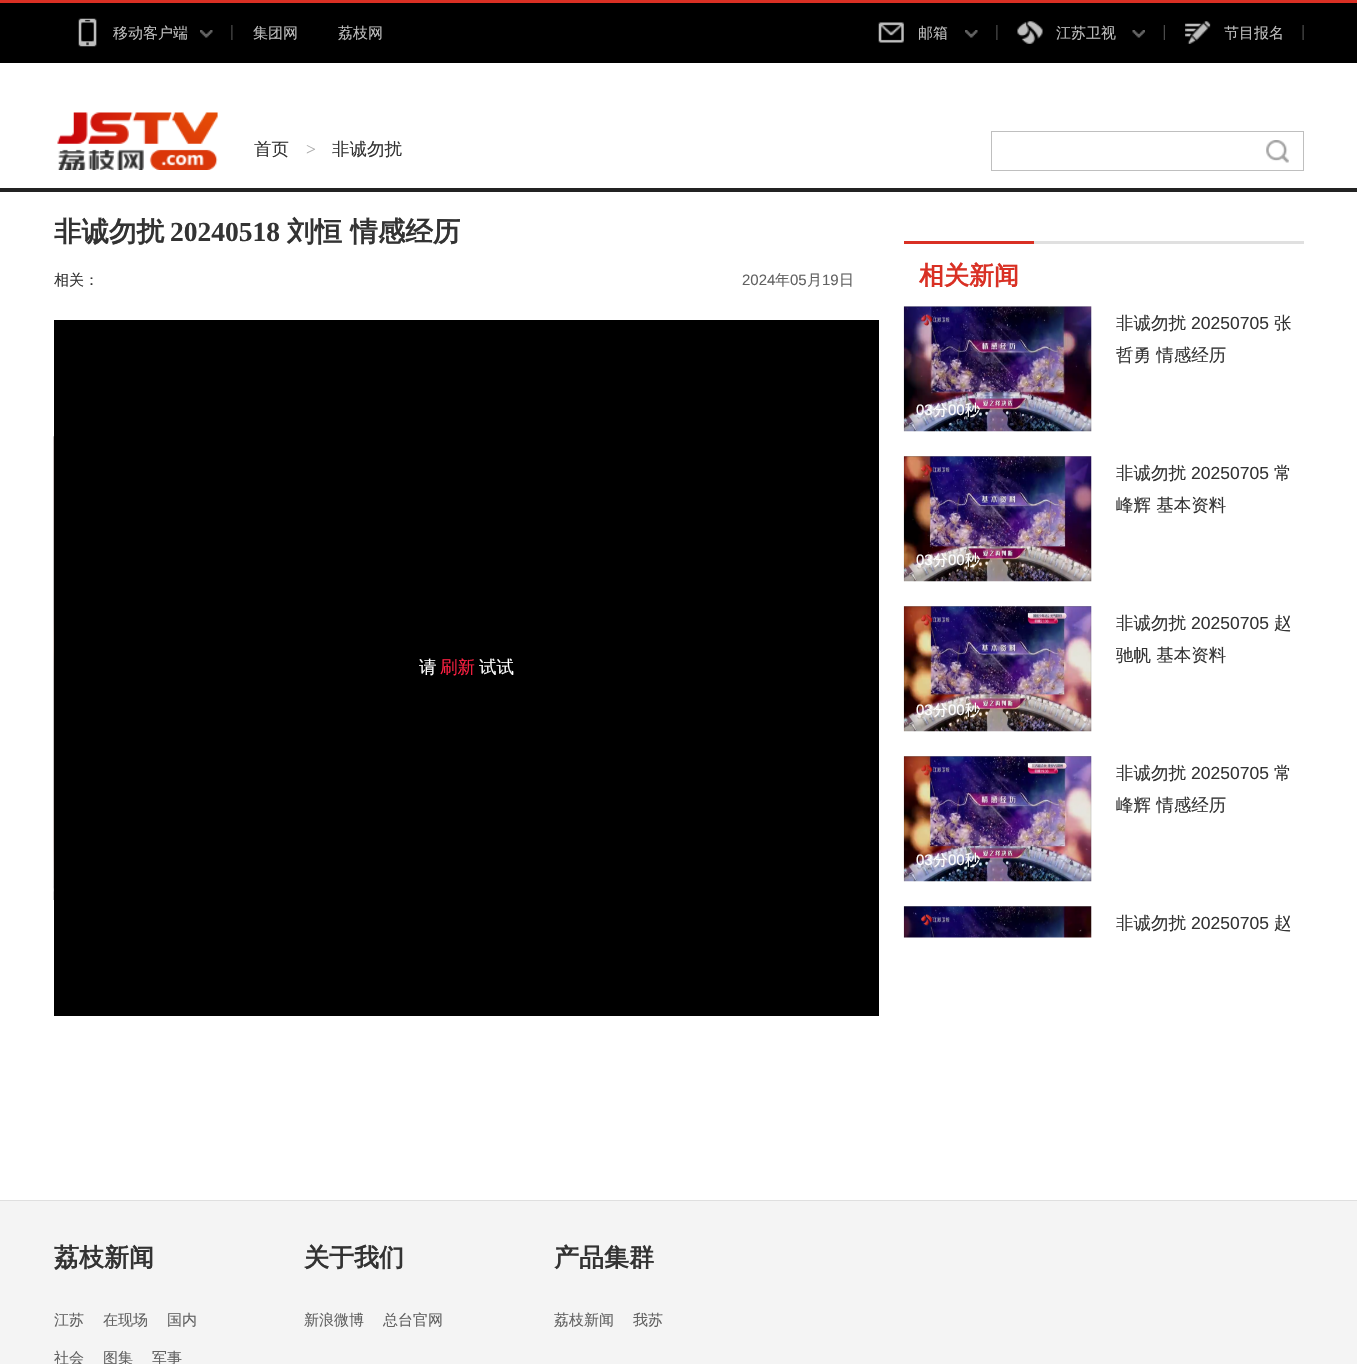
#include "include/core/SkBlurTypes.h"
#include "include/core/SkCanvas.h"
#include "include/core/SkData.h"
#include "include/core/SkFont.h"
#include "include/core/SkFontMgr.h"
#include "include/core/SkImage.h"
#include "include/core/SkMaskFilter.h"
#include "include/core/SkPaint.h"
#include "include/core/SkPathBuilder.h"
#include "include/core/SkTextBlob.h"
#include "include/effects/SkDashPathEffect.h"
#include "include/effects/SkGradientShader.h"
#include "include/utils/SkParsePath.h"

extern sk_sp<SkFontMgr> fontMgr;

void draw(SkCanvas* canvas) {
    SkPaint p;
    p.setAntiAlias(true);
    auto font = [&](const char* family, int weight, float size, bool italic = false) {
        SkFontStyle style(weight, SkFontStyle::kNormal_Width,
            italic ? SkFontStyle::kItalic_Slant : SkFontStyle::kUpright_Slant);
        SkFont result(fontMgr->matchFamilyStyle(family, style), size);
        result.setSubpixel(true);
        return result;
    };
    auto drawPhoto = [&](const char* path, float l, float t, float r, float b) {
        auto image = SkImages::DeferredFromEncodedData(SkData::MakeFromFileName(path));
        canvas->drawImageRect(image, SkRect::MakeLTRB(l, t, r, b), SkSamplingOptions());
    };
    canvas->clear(0xFFFFFFFF);
    p.setColor(0xFF000000);
    canvas->drawRect(SkRect::MakeLTRB(0, 3, 1357, 63), p);
    p.setColor(0xFFD93024);
    canvas->drawRect(SkRect::MakeLTRB(0, 0, 1357, 3), p);
    drawPhoto("media/1.png", 231, 25, 233, 40);
    drawPhoto("media/2.png", 78, 18, 97, 47);
    auto font1 = font("WenQuanYi Zen Hei", 500, 15);
    p.setColor(0xFFBEBEBE);
    canvas->drawString("移动客户端", 113, 38, font1, p);
    drawPhoto("media/3.png", 200, 30, 213, 38);
    canvas->drawString("集团网", 253, 38, font1, p);
    canvas->drawString("荔枝网", 338, 38, font1, p);
    drawPhoto("media/1.png", 996, 25, 998, 40);
    drawPhoto("media/4.png", 878, 22, 904, 43);
    canvas->drawString("邮箱", 918, 38, font1, p);
    drawPhoto("media/5.png", 965, 30, 978, 38);
    drawPhoto("media/6.png", 1163, 25, 1165, 40);
    drawPhoto("media/7.png", 1017, 21, 1043, 44);
    canvas->drawString("江苏卫视", 1056, 38, font1, p);
    drawPhoto("media/8.png", 1132, 30, 1145, 38);
    drawPhoto("media/9.png", 1302, 25, 1304, 40);
    drawPhoto("media/10.png", 1185, 21, 1211, 44);
    canvas->drawString("节目报名", 1224, 38, font1, p);
    p.setColor(0xFF232323);
    canvas->drawRect(SkRect::MakeLTRB(0, 188, 1357, 192), p);
    drawPhoto("media/11.png", 57, 112, 218, 170);
    auto font2 = font("WenQuanYi Zen Hei", 500, 17.5f);
    p.setColor(0xFF333333);
    canvas->drawString("首页", 254, 155, font2, p);
    auto font3 = font("Liberation Serif", 400, 17.5f);
    p.setColor(0xFFAAAAAA);
    canvas->drawString(">", 306, 155, font3, p);
    p.setColor(0xFF333333);
    canvas->drawString("非诚勿扰", 332, 155, font2, p);
    p.setStyle(SkPaint::kStroke_Style);
    p.setStrokeWidth(1);
    p.setColor(0xFFBFBFBF);
    canvas->drawRect(SkRect::MakeLTRB(991.5f, 131.5f, 1303.5f, 170.5f), p);
    drawPhoto("media/12.png", 1266, 140, 1289, 163);
    auto font4 = font("WenQuanYi Zen Hei", 700, 27.5f);
    p.setStyle(SkPaint::kFill_Style);
    p.setColor(0xFF333333);
    canvas->drawString("非诚勿扰", 54, 241, font4, p);
    auto font5 = font("Liberation Serif", 700, 27.5f);
    canvas->drawString("20240518", 170, 241, font5, p);
    canvas->drawString("刘恒 情感经历", 287, 241, font4, p);
    canvas->drawString("相关：", 54, 285, font1, p);
    auto font6 = font("Liberation Sans", 400, 15);
    p.setColor(0xFF616161);
    canvas->drawString("2024", 742, 285, font6, p);
    canvas->drawString("年", 775, 285, font1, p);
    canvas->drawString("05", 790, 285, font6, p);
    canvas->drawString("月", 807, 285, font1, p);
    canvas->drawString("19", 822, 285, font6, p);
    canvas->drawString("日", 839, 285, font1, p);
    drawPhoto("media/13.png", 53, 436, 54, 900);
    p.setColor(0xFF000000);
    canvas->drawRect(SkRect::MakeLTRB(54, 320, 879, 1016), p);
    p.setColor(0xFFFFFFFF);
    canvas->drawString("请", 419, 673, font2, p);
    p.setColor(0xFFFA1F41);
    canvas->drawString("刷新", 440, 673, font2, p);
    p.setColor(0xFFFFFFFF);
    canvas->drawString("试试", 479, 673, font2, p);
    p.setColor(0xFFE0E0E0);
    canvas->drawRect(SkRect::MakeLTRB(1034, 241, 1304, 244), p);
    p.setColor(0xFFD93024);
    canvas->drawRect(SkRect::MakeLTRB(904, 241, 1034, 244), p);
    auto font7 = font("WenQuanYi Zen Hei", 700, 25);
    canvas->drawString("相关新闻", 919, 284, font7, p);
    p.setColor(0xFF333333);
    canvas->drawString("非诚勿扰", 1116, 329, font2, p);
    auto font8 = font("Liberation Sans", 400, 17.5f);
    canvas->drawString("20250705", 1191, 329, font8, p);
    canvas->drawString("张", 1274, 329, font2, p);
    canvas->drawString("哲勇 情感经历", 1116, 361, font2, p);
    drawPhoto("media/14.png", 903, 306, 1092, 432);
    p.setColor(0xFFFFFFFF);
    canvas->drawString("03", 916, 415, font6, p);
    canvas->drawString("分", 933, 415, font1, p);
    canvas->drawString("00", 948, 415, font6, p);
    canvas->drawString("秒", 965, 415, font1, p);
    p.setColor(0xFF333333);
    canvas->drawString("非诚勿扰", 1116, 479, font2, p);
    canvas->drawString("20250705", 1191, 479, font8, p);
    canvas->drawString("常", 1274, 479, font2, p);
    canvas->drawString("峰辉 基本资料", 1116, 511, font2, p);
    drawPhoto("media/15.png", 903, 456, 1092, 582);
    p.setColor(0xFFFFFFFF);
    canvas->drawString("03", 916, 565, font6, p);
    canvas->drawString("分", 933, 565, font1, p);
    canvas->drawString("00", 948, 565, font6, p);
    canvas->drawString("秒", 965, 565, font1, p);
    p.setColor(0xFF333333);
    canvas->drawString("非诚勿扰", 1116, 629, font2, p);
    canvas->drawString("20250705", 1191, 629, font8, p);
    canvas->drawString("赵", 1274, 629, font2, p);
    canvas->drawString("驰帆 基本资料", 1116, 661, font2, p);
    drawPhoto("media/16.png", 903, 606, 1092, 732);
    p.setColor(0xFFFFFFFF);
    canvas->drawString("03", 916, 715, font6, p);
    canvas->drawString("分", 933, 715, font1, p);
    canvas->drawString("00", 948, 715, font6, p);
    canvas->drawString("秒", 965, 715, font1, p);
    p.setColor(0xFF333333);
    canvas->drawString("非诚勿扰", 1116, 779, font2, p);
    canvas->drawString("20250705", 1191, 779, font8, p);
    canvas->drawString("常", 1274, 779, font2, p);
    canvas->drawString("峰辉 情感经历", 1116, 811, font2, p);
    drawPhoto("media/17.png", 903, 756, 1092, 882);
    p.setColor(0xFFFFFFFF);
    canvas->drawString("03", 916, 865, font6, p);
    canvas->drawString("分", 933, 865, font1, p);
    canvas->drawString("00", 948, 865, font6, p);
    canvas->drawString("秒", 965, 865, font1, p);
    drawPhoto("media/18.png", 903, 906, 1092, 938);
    p.setColor(0xFF333333);
    canvas->drawString("非诚勿扰", 1116, 929, font2, p);
    canvas->drawString("20250705", 1191, 929, font8, p);
    canvas->drawString("赵", 1274, 929, font2, p);
    p.setColor(0xFFF4F4F4);
    canvas->drawRect(SkRect::MakeLTRB(0, 1201, 1357, 1364), p);
    p.setColor(0xFFDFDFDF);
    canvas->drawRect(SkRect::MakeLTRB(0, 1200, 1357, 1201), p);
    p.setColor(0xFF333333);
    canvas->drawString("荔枝新闻", 54, 1266, font7, p);
    p.setColor(0xFF616161);
    {
        const struct { const char* s; float x, y; } items[] = {
            {"江苏", 54, 1325},
            {"在现场", 103, 1325},
            {"国内", 167, 1325},
            {"社会", 54, 1363},
            {"图集", 103, 1363},
            {"军事", 152, 1363},
        };
        for (auto [s, x, y] : items) {
            canvas->drawString(s, x, y, font1, p);
        }
    }
    p.setColor(0xFF333333);
    canvas->drawString("关于我们", 304, 1266, font7, p);
    p.setColor(0xFF616161);
    canvas->drawString("新浪微博", 304, 1325, font1, p);
    canvas->drawString("总台官网", 383, 1325, font1, p);
    p.setColor(0xFF333333);
    canvas->drawString("产品集群", 554, 1266, font7, p);
    p.setColor(0xFF616161);
    canvas->drawString("荔枝新闻", 554, 1325, font1, p);
    canvas->drawString("我苏", 633, 1325, font1, p);
}
